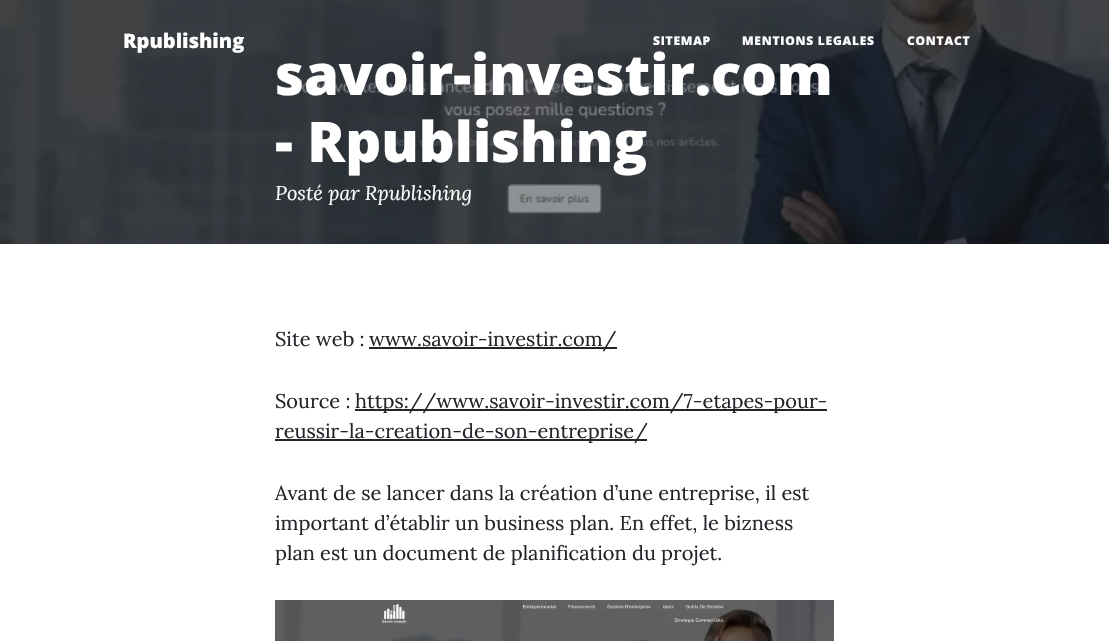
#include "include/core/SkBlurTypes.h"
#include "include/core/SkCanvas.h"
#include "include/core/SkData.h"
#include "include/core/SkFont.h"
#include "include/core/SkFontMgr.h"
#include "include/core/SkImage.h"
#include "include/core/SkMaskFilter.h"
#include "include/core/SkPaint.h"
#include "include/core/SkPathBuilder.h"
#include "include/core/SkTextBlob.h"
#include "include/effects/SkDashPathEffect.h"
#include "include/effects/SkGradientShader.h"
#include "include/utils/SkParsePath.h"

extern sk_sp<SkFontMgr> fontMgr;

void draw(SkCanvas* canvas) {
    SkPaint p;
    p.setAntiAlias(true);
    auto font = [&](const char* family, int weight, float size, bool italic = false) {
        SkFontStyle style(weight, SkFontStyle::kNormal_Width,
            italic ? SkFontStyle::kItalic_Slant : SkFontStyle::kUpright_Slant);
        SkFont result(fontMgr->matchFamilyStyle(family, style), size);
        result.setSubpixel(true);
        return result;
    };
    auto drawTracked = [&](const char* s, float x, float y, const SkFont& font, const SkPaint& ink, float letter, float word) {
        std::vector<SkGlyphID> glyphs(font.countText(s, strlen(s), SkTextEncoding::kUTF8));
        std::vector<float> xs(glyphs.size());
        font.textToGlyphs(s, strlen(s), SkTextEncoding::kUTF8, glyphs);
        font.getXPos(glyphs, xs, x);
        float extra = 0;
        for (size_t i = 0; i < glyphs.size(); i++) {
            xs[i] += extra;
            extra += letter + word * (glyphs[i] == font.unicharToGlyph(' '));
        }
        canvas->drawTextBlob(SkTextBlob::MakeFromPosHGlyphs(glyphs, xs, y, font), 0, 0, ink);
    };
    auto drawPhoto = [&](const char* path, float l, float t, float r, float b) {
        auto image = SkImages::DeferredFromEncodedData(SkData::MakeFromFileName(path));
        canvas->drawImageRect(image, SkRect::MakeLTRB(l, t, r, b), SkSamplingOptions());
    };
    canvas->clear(0xFFFFFFFF);
    drawPhoto("media/1.png", 0, 0, 1109, 244);
    auto font1 = font("Open Sans", 800, 20);
    p.setColor(0xFFFFFFFF);
    canvas->drawString("Rpublishing", 123, 48, font1, p);
    auto font2 = font("Open Sans", 800, 12);
    {
        const struct { const char* s; float x, y; } items[] = {
            {"SITEMAP", 653, 45},
            {"MENTIONS LEGALES", 742, 45},
            {"CONTACT", 907, 45},
        };
        for (auto [s, x, y] : items) {
            drawTracked(s, x, y, font2, p, 0.75f, 0);
        }
    }
    auto font3 = font("Open Sans", 800, 56);
    canvas->drawString("savoir-investir.com", 275, 95, font3, p);
    canvas->drawString("- Rpublishing", 275, 162, font3, p);
    auto font4 = font("Lora", 400, 20, true);
    canvas->drawString("Posté par Rpublishing", 275, 200, font4, p);
    auto font5 = font("Lora", 400, 20);
    p.setColor(0xFF212529);
    canvas->drawString("Site web :", 275, 346, font5, p);
    canvas->drawRect(SkRect::MakeLTRB(369, 347, 617, 349), p);
    canvas->drawString("www.savoir-investir.com/", 369, 346, font5, p);
    canvas->drawString("Source :", 275, 408, font5, p);
    canvas->drawRect(SkRect::MakeLTRB(355, 409, 827, 411), p);
    canvas->drawString("https://www.savoir-investir.com/7-etapes-pour-", 355, 408, font5, p);
    canvas->drawRect(SkRect::MakeLTRB(275, 439, 647, 441), p);
    {
        const struct { const char* s; float x, y; } items[] = {
            {"reussir-la-creation-de-son-entreprise/", 275, 438},
            {"Avant de se lancer dans la création d’une entreprise, il est", 275, 500},
            {"important d’établir un business plan. En effet, le bizness", 275, 530},
            {"plan est un document de planification du projet.", 275, 560},
        };
        for (auto [s, x, y] : items) {
            canvas->drawString(s, x, y, font5, p);
        }
    }
    drawPhoto("media/2.png", 275, 600, 834, 641);
}
